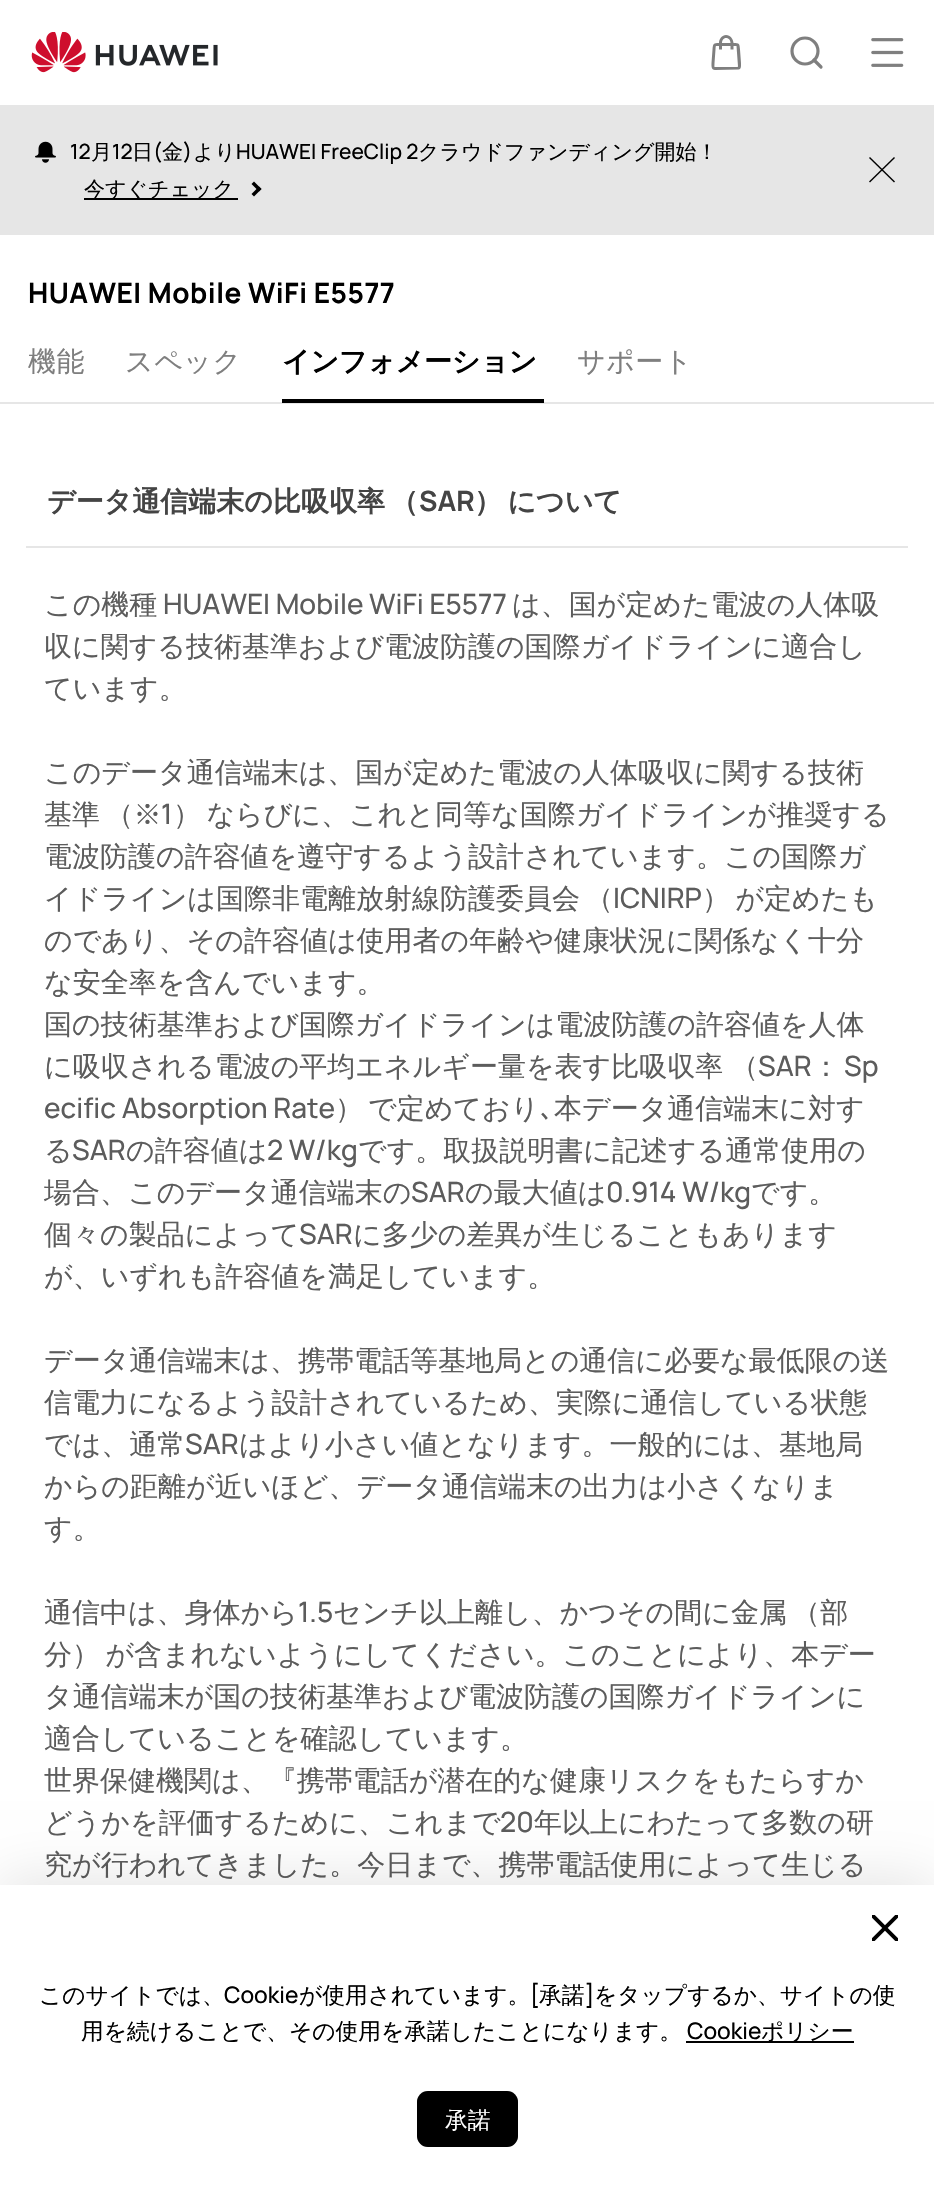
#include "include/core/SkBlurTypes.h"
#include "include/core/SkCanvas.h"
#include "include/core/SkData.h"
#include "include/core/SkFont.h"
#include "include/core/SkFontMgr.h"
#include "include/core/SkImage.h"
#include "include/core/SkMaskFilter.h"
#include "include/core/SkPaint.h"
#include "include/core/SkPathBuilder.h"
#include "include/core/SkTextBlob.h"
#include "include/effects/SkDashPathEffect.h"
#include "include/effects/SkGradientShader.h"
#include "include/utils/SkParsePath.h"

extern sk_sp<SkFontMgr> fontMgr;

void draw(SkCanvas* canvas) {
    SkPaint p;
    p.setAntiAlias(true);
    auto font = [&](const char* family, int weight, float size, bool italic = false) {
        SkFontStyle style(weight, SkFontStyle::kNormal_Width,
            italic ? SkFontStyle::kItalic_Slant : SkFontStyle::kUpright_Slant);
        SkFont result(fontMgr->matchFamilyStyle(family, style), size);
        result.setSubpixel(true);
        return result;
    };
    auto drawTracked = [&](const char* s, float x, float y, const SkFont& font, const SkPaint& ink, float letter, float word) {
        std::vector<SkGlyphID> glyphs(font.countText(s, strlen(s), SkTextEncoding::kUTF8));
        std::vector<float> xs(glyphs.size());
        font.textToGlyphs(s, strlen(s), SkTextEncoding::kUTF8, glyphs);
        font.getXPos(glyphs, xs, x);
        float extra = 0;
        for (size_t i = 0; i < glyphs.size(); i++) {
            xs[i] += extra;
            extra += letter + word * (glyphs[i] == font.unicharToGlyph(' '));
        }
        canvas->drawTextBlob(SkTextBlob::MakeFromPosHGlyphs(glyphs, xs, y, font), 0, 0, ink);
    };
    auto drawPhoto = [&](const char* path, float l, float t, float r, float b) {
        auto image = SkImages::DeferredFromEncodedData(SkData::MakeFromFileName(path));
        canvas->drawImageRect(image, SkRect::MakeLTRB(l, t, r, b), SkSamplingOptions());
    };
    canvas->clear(0xFFFFFFFF);
    drawPhoto("media/1.png", 31, 32, 218, 73);
    p.setColor(0xFF7F7F7F);
    canvas->drawPath(SkPathBuilder(SkPathFillType::kEvenOdd).moveTo(726, 35).cubicTo(722, 35, 719, 39, 719, 43).cubicTo(713.5f, 43, 713, 43.5f, 712.5f, 49.5f).lineTo(711.5f, 63).cubicTo(711.5f, 65.5f, 711, 70, 715, 70).lineTo(738.5f, 69.5f).cubicTo(741.5f, 69, 741, 65.5f, 741, 63).lineTo(740, 49.5f).cubicTo(739.5f, 43.5f, 739.5f, 43, 733.5f, 43).cubicTo(733, 39, 730.5f, 35, 726, 35).close().moveTo(726, 38).cubicTo(729, 38, 730.5f, 40.5f, 730.5f, 43).lineTo(722, 43).cubicTo(722, 40.5f, 723.5f, 38, 726, 38).close().moveTo(736.5f, 46).lineTo(738, 66.5f).lineTo(737.5f, 67).lineTo(718.5f, 67).cubicTo(713.5f, 67, 714.5f, 68, 714.5f, 63).lineTo(715.5f, 49.5f).cubicTo(716, 45, 715, 46, 719, 46).lineTo(719, 49.5f).lineTo(722, 49.5f).lineTo(722, 46).lineTo(730.5f, 46).lineTo(730.5f, 49.5f).lineTo(733.5f, 49.5f).lineTo(733.5f, 46).close().detach(), p);
    p.setStyle(SkPaint::kStroke_Style);
    p.setStrokeWidth(3.2f);
    canvas->drawCircle(805, 51, 13, p);
    p.setStrokeCap(SkPaint::kRound_Cap);
    p.setStrokeJoin(SkPaint::kRound_Join);
    canvas->drawPath(SkPathBuilder().moveTo(821, 67).lineTo(814, 60).detach(), p);
    drawPhoto("media/2.png", 871, 38, 904, 67);
    p.setStyle(SkPaint::kFill_Style);
    p.setColor(0xFFE6E6E6);
    canvas->drawRect(SkRect::MakeLTRB(0, 105, 934, 235), p);
    drawPhoto("media/3.png", 35, 141, 56, 163);
    auto font1 = font("Manrope", 500, 21);
    p.setColor(0xFF000000);
    canvas->drawString("12", 70, 159, font1, p);
    auto font2 = font("WenQuanYi Zen Hei", 500, 21);
    canvas->drawString("月", 91, 159, font2, p);
    canvas->drawString("12", 112, 159, font1, p);
    canvas->drawString("日", 132, 159, font2, p);
    canvas->drawString("(", 153, 159, font1, p);
    canvas->drawString("金", 162, 159, font2, p);
    canvas->drawString(")", 183, 159, font1, p);
    canvas->drawString("より", 193, 159, font2, p);
    canvas->drawString("HUAWEI FreeClip 2", 236, 159, font1, p);
    canvas->drawString("クラウドファンディング開始！", 418, 159, font2, p);
    canvas->drawRect(SkRect::MakeLTRB(84, 198, 238, 200), p);
    canvas->drawString("今すぐチェック", 84, 196, font2, p);
    canvas->drawPath(SkPathBuilder().moveTo(254, 181.5f).lineTo(261.5f, 189).lineTo(259, 191.5f).lineTo(251.5f, 184).close().detach(), p);
    canvas->drawPath(SkPathBuilder().moveTo(259, 186.5f).lineTo(261.5f, 189).lineTo(254, 196.5f).lineTo(251.5f, 194).close().detach(), p);
    canvas->drawPath(SkPathBuilder().moveTo(894, 157).lineTo(895, 158).lineTo(870, 182.5f).lineTo(869, 181.5f).close().detach(), p);
    canvas->drawPath(SkPathBuilder().moveTo(869, 158).lineTo(870, 157).lineTo(895, 181.5f).lineTo(894, 182.5f).close().detach(), p);
    p.setColor(0xFFE6E6E6);
    canvas->drawPath(SkPathBuilder().moveTo(0, 402).lineTo(0, 404).lineTo(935, 404).lineTo(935, 236).lineTo(934, 236).lineTo(934, 402).close().detach(), p);
    auto font3 = font("Manrope", 700, 28);
    p.setColor(0xFF000000);
    drawTracked("HUAWEI Mobile WiFi E5577", 28, 303, font3, p, 0.5f, 0);
    auto font4 = font("WenQuanYi Zen Hei", 500, 28);
    p.setColor(0xFF7F7F7F);
    drawTracked("機能", 28, 371, font4, p, 0.5f, 0);
    drawTracked("スペック", 125, 371, font4, p, 0.5f, 0);
    p.setColor(0xFF000000);
    canvas->drawRect(SkRect::MakeLTRB(282, 399, 544, 403), p);
    auto font5 = font("WenQuanYi Zen Hei", 700, 28);
    drawTracked("インフォメーション", 282, 371, font5, p, -0.25f, 0);
    p.setColor(0xFF7F7F7F);
    drawTracked("サポート", 577, 371, font4, p, 0.5f, 0);
    p.setColor(0xFFE6E6E6);
    canvas->drawRect(SkRect::MakeLTRB(26, 546, 908, 548), p);
    p.setColor(0xFF444444);
    drawTracked("データ通信端末の比吸収率 （", 47, 511, font5, p, 0, -3);
    canvas->drawString("SAR", 419, 511, font3, p);
    drawTracked("） について", 474, 511, font5, p, 0, -3);
    p.setColor(0xFF5C5C5C);
    canvas->drawString("この機種", 44, 614, font4, p);
    auto font6 = font("Manrope", 500, 28);
    canvas->drawString("HUAWEI Mobile WiFi E5577", 163, 614, font6, p);
    {
        const struct { const char* s; float x, y; } items[] = {
            {"は、国が定めた電波の人体吸", 512, 614},
            {"収に関する技術基準および電波防護の国際ガイドラインに適合し", 44, 656},
            {"ています。", 44, 698},
            {"このデータ通信端末は、国が定めた電波の人体吸収に関する技術", 44, 782},
        };
        for (auto [s, x, y] : items) {
            canvas->drawString(s, x, y, font4, p);
        }
    }
    drawTracked("基準 （※", 44, 824, font4, p, 0, -3);
    canvas->drawString("1", 161, 824, font6, p);
    drawTracked("） ならびに、これと同等な国際ガイドラインが推奨する", 173, 824, font4, p, 0, -3);
    canvas->drawString("電波防護の許容値を遵守するよう設計されています。この国際ガ", 44, 866, font4, p);
    drawTracked("イドラインは国際非電離放射線防護委員会 （", 44, 908, font4, p, 0, -3);
    canvas->drawString("ICNIRP", 613, 908, font6, p);
    drawTracked("） が定めたも", 702, 908, font4, p, 0, -3);
    {
        const struct { const char* s; float x, y; } items[] = {
            {"のであり、その許容値は使用者の年齢や健康状況に関係なく十分", 44, 950},
            {"な安全率を含んでいます。", 44, 992},
            {"国の技術基準および国際ガイドラインは電波防護の許容値を人体", 44, 1034},
        };
        for (auto [s, x, y] : items) {
            canvas->drawString(s, x, y, font4, p);
        }
    }
    drawTracked("に吸収される電波の平均エネルギー量を表す比吸収率 （", 44, 1076, font4, p, 0, -1);
    canvas->drawString("SAR", 758, 1076, font6, p);
    canvas->drawString("：", 812, 1076, font4, p);
    canvas->drawString("Sp", 844, 1076, font6, p);
    canvas->drawString("ecific Absorption Rate", 44, 1118, font6, p);
    canvas->drawString("）", 335, 1118, font4, p);
    canvas->drawString("で定めており", 368, 1118, font4, p);
    auto font7 = font("IPAPGothic", 400, 28);
    canvas->drawString("､", 540, 1118, font7, p);
    canvas->drawString("本データ通信端末に対す", 554, 1118, font4, p);
    canvas->drawString("る", 44, 1160, font4, p);
    canvas->drawString("SAR", 72, 1160, font6, p);
    canvas->drawString("の許容値は", 126, 1160, font4, p);
    canvas->drawString("2 W/kg", 267, 1160, font6, p);
    canvas->drawString("です。取扱説明書に記述する通常使用の", 358, 1160, font4, p);
    canvas->drawString("場合、このデータ通信端末の", 44, 1202, font4, p);
    canvas->drawString("SAR", 411, 1202, font6, p);
    canvas->drawString("の最大値は", 465, 1202, font4, p);
    canvas->drawString("0.914 W/kg", 606, 1202, font6, p);
    canvas->drawString("です。", 751, 1202, font4, p);
    canvas->drawString("個々の製品によって", 44, 1244, font4, p);
    canvas->drawString("SAR", 299, 1244, font6, p);
    {
        const struct { const char* s; float x, y; } items[] = {
            {"に多少の差異が生じることもあります", 353, 1244},
            {"が、いずれも許容値を満足しています。", 44, 1286},
            {"データ通信端末は、携帯電話等基地局との通信に必要な最低限の送", 44, 1370},
            {"信電力になるよう設計されているため、実際に通信している状態", 44, 1412},
            {"では、通常", 44, 1454},
        };
        for (auto [s, x, y] : items) {
            canvas->drawString(s, x, y, font4, p);
        }
    }
    canvas->drawString("SAR", 185, 1454, font6, p);
    {
        const struct { const char* s; float x, y; } items[] = {
            {"はより小さい値となります。一般的には、基地局", 239, 1454},
            {"からの距離が近いほど、データ通信端末の出力は小さくなりま", 44, 1496},
            {"す。", 44, 1538},
            {"通信中は、身体から", 44, 1622},
        };
        for (auto [s, x, y] : items) {
            canvas->drawString(s, x, y, font4, p);
        }
    }
    canvas->drawString("1.5", 298, 1622, font6, p);
    drawTracked("センチ以上離し、かつその間に金属 （部", 333, 1622, font4, p, 0, -3);
    drawTracked("分） が含まれないようにしてください。このことにより、本デー", 44, 1664, font4, p, 0, -3);
    {
        const struct { const char* s; float x, y; } items[] = {
            {"タ通信端末が国の技術基準および電波防護の国際ガイドラインに", 44, 1706},
            {"適合していることを確認しています。", 44, 1748},
            {"世界保健機関は、『携帯電話が潜在的な健康リスクをもたらすか", 44, 1790},
            {"どうかを評価するために、これまで", 44, 1832},
        };
        for (auto [s, x, y] : items) {
            canvas->drawString(s, x, y, font4, p);
        }
    }
    canvas->drawString("20", 500, 1832, font6, p);
    canvas->drawString("年以上にわたって多数の研", 534, 1832, font4, p);
    canvas->drawString("究が行われてきました。今日まで、携帯電話使用によって生じる", 44, 1874, font4, p);
    p.setColor(0x1A000000);
    p.setMaskFilter(SkMaskFilter::MakeBlur(kNormal_SkBlurStyle, 26));
    canvas->drawRect(SkRect::MakeLTRB(0, 1878, 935, 2182), p);
    p.setMaskFilter(nullptr);
    p.setColor(0xFFFFFFFF);
    canvas->drawRect(SkRect::MakeLTRB(0, 1885, 934, 2188), p);
    drawPhoto("media/4.png", 872, 1915, 898, 1941);
    auto font8 = font("WenQuanYi Zen Hei", 500, 22.75f);
    p.setColor(0xFF000000);
    canvas->drawString("このサイトでは、", 39, 2003, font8, p);
    auto font9 = font("Manrope", 500, 22.75f);
    canvas->drawString("Cookie", 224, 2003, font9, p);
    canvas->drawString("が使用されています。", 299, 2003, font8, p);
    canvas->drawString("[", 530, 2003, font9, p);
    canvas->drawString("承諾", 539, 2003, font8, p);
    canvas->drawString("]", 585, 2003, font9, p);
    canvas->drawString("をタップするか、サイトの使", 594, 2003, font8, p);
    canvas->drawString("用を続けることで、その使用を承諾したことになります。", 81, 2039, font8, p);
    canvas->drawString("Cookie", 687, 2039, font9, p);
    canvas->drawRect(SkRect::MakeLTRB(686, 2041, 854, 2043), p);
    canvas->drawString("ポリシー", 761, 2039, font8, p);
    canvas->drawRoundRect(SkRect::MakeLTRB(417, 2091, 518, 2147), 11, 11, p);
    p.setStyle(SkPaint::kStroke_Style);
    p.setStrokeWidth(2);
    p.setStrokeCap(SkPaint::kButt_Cap);
    p.setStrokeJoin(SkPaint::kMiter_Join);
    p.setColor(0x4D000000);
    canvas->drawRoundRect(SkRect::MakeLTRB(418, 2092, 517, 2146), 10, 10, p);
    p.setStyle(SkPaint::kFill_Style);
    p.setColor(0xFFFFFFFF);
    canvas->drawString("承諾", 445, 2128, font8, p);
}
